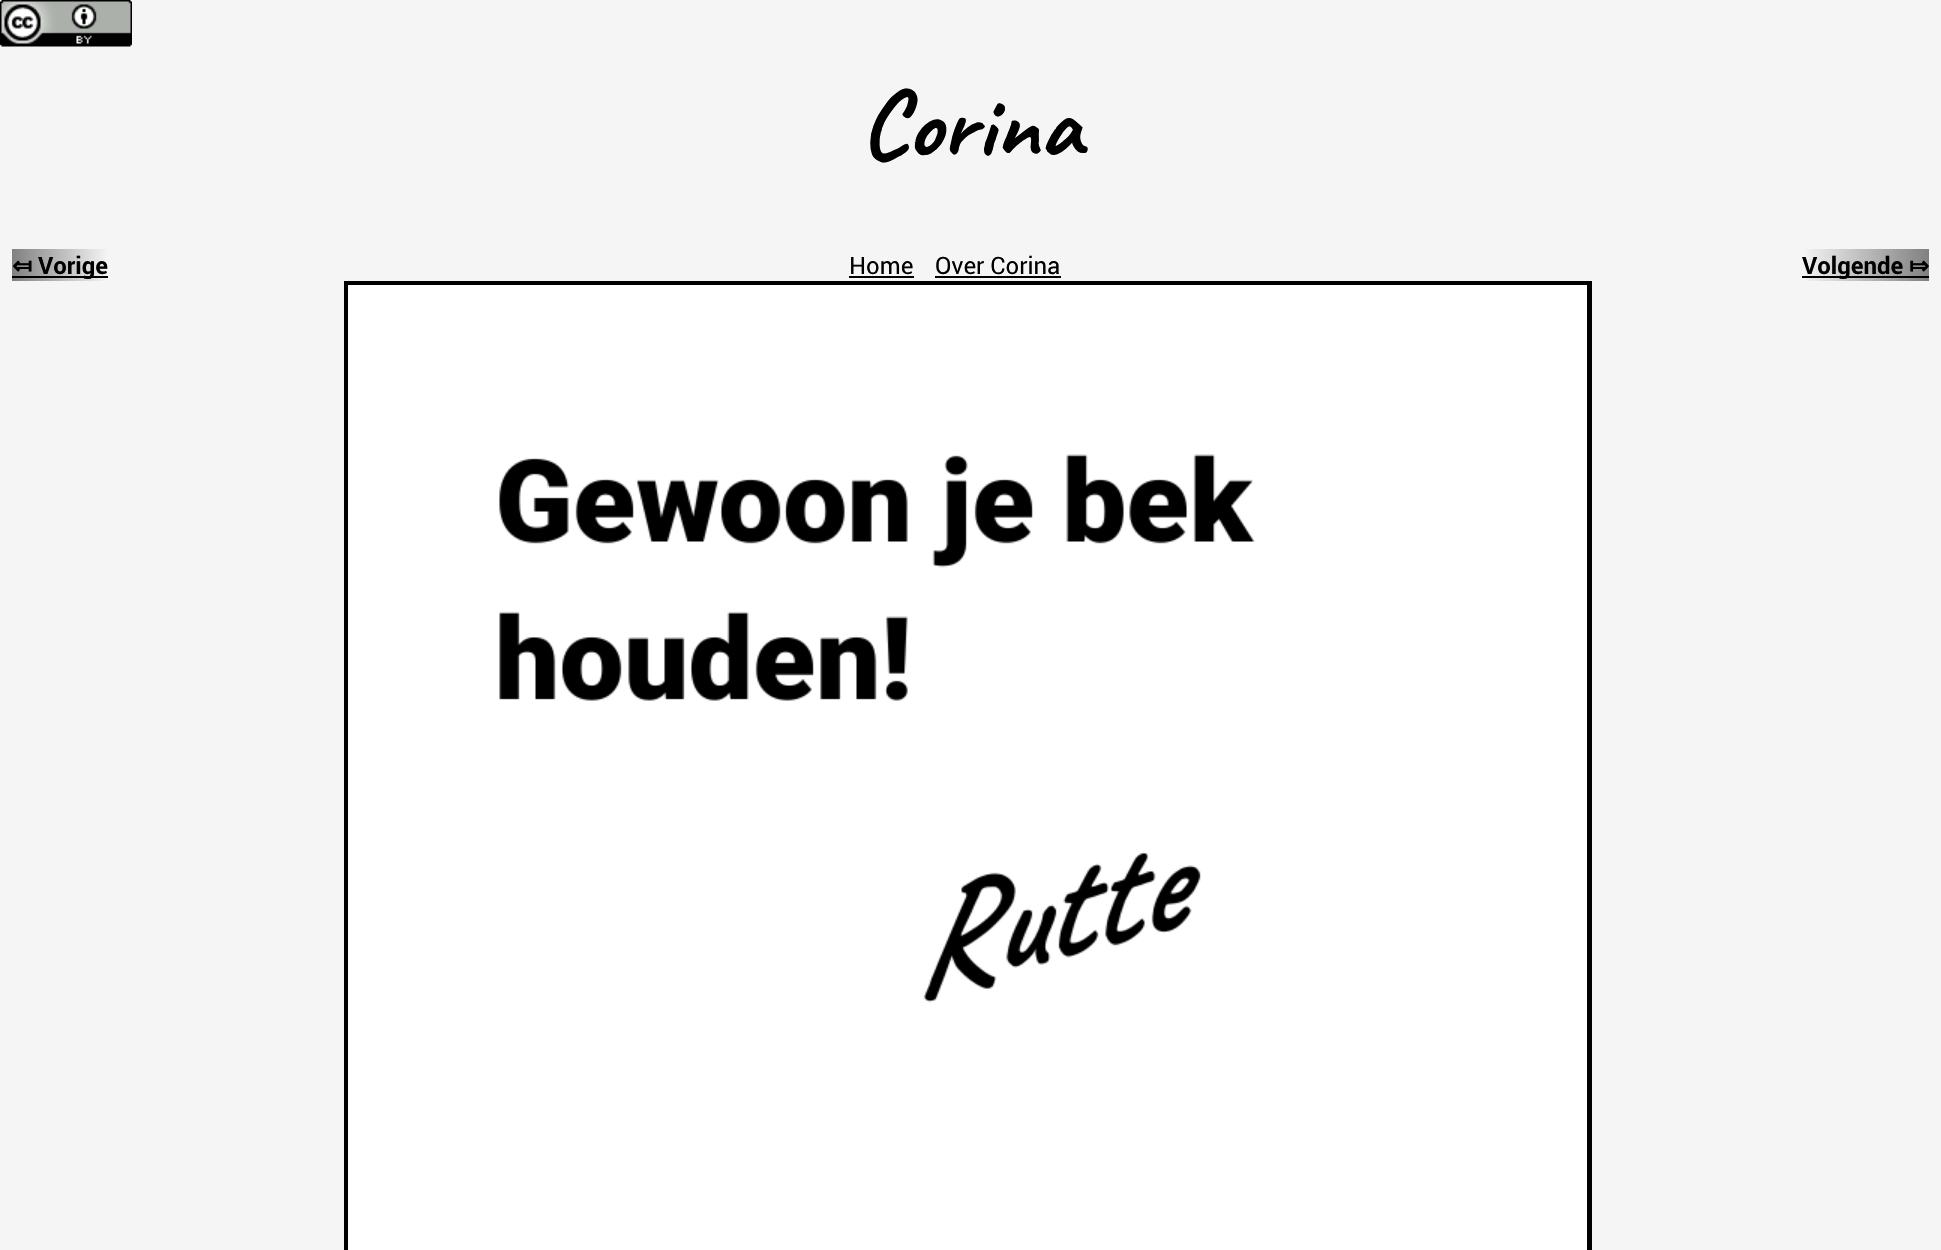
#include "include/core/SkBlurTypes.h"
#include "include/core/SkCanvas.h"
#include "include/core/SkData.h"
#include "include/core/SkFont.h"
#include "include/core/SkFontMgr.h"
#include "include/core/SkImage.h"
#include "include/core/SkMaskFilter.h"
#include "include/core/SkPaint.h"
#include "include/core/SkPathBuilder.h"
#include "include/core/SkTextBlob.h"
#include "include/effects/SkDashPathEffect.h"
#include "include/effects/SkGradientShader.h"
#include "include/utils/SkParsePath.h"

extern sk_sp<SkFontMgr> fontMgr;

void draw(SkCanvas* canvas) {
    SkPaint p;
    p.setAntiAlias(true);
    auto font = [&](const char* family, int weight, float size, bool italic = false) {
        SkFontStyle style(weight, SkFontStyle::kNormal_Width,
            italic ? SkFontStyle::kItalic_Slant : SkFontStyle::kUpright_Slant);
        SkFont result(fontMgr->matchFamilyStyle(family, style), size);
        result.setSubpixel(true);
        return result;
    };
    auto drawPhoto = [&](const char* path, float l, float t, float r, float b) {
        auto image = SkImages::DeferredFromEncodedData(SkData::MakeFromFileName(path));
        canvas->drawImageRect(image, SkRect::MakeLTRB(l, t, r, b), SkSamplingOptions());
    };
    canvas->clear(0xFFF5F5F5);
    drawPhoto("media/1.png", 0, 0, 132, 47);
    auto font1 = font("Caveat", 700, 96);
    p.setColor(0xFF000000);
    canvas->drawString("Corina", 859, 156, font1, p);
    {
        const SkColor colors[] = {0xFFF5F5F5, 0xFF808080};
        const float stops[] = {0, 1};
        const SkPoint ends[] = {{108, 265}, {12, 265}};
        p.setShader(SkGradientShader::MakeLinear(ends, colors, stops, 2, SkTileMode::kClamp));
        p.setAlpha(255);
    }
    canvas->drawRect(SkRect::MakeLTRB(12, 249, 106, 281), p);
    auto font2 = font("DejaVu Sans", 700, 24);
    p.setShader(nullptr);
    p.setColor(0xFF000000);
    canvas->drawString("⤆", 12, 274, font2, p);
    canvas->drawRect(SkRect::MakeLTRB(12, 276, 108, 278), p);
    auto font3 = font("Roboto", 700, 24);
    canvas->drawString("Vorige", 38, 274, font3, p);
    auto font4 = font("Roboto", 400, 24);
    canvas->drawString("Home", 849, 274, font4, p);
    canvas->drawRect(SkRect::MakeLTRB(849, 276, 914, 278), p);
    canvas->drawString("Over Corina", 935, 274, font4, p);
    canvas->drawRect(SkRect::MakeLTRB(935, 276, 1061, 278), p);
    {
        const SkColor colors[] = {0xFFF5F5F5, 0xFF808080};
        const float stops[] = {0, 1};
        const SkPoint ends[] = {{1802, 265}, {1929, 265}};
        p.setShader(SkGradientShader::MakeLinear(ends, colors, stops, 2, SkTileMode::kClamp));
        p.setAlpha(255);
    }
    canvas->drawRect(SkRect::MakeLTRB(1805, 249, 1929, 281), p);
    p.setShader(nullptr);
    p.setColor(0xFF000000);
    canvas->drawRect(SkRect::MakeLTRB(1802, 276, 1929, 278), p);
    canvas->drawString("Volgende", 1802, 274, font3, p);
    canvas->drawString("⤇", 1909, 274, font2, p);
    p.setStyle(SkPaint::kStroke_Style);
    p.setStrokeWidth(5);
    canvas->drawRect(SkRect::MakeLTRB(346.5f, 283.5f, 1589.5f, 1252.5f), p);
    drawPhoto("media/2.png", 348, 285, 1587, 1250);
}
